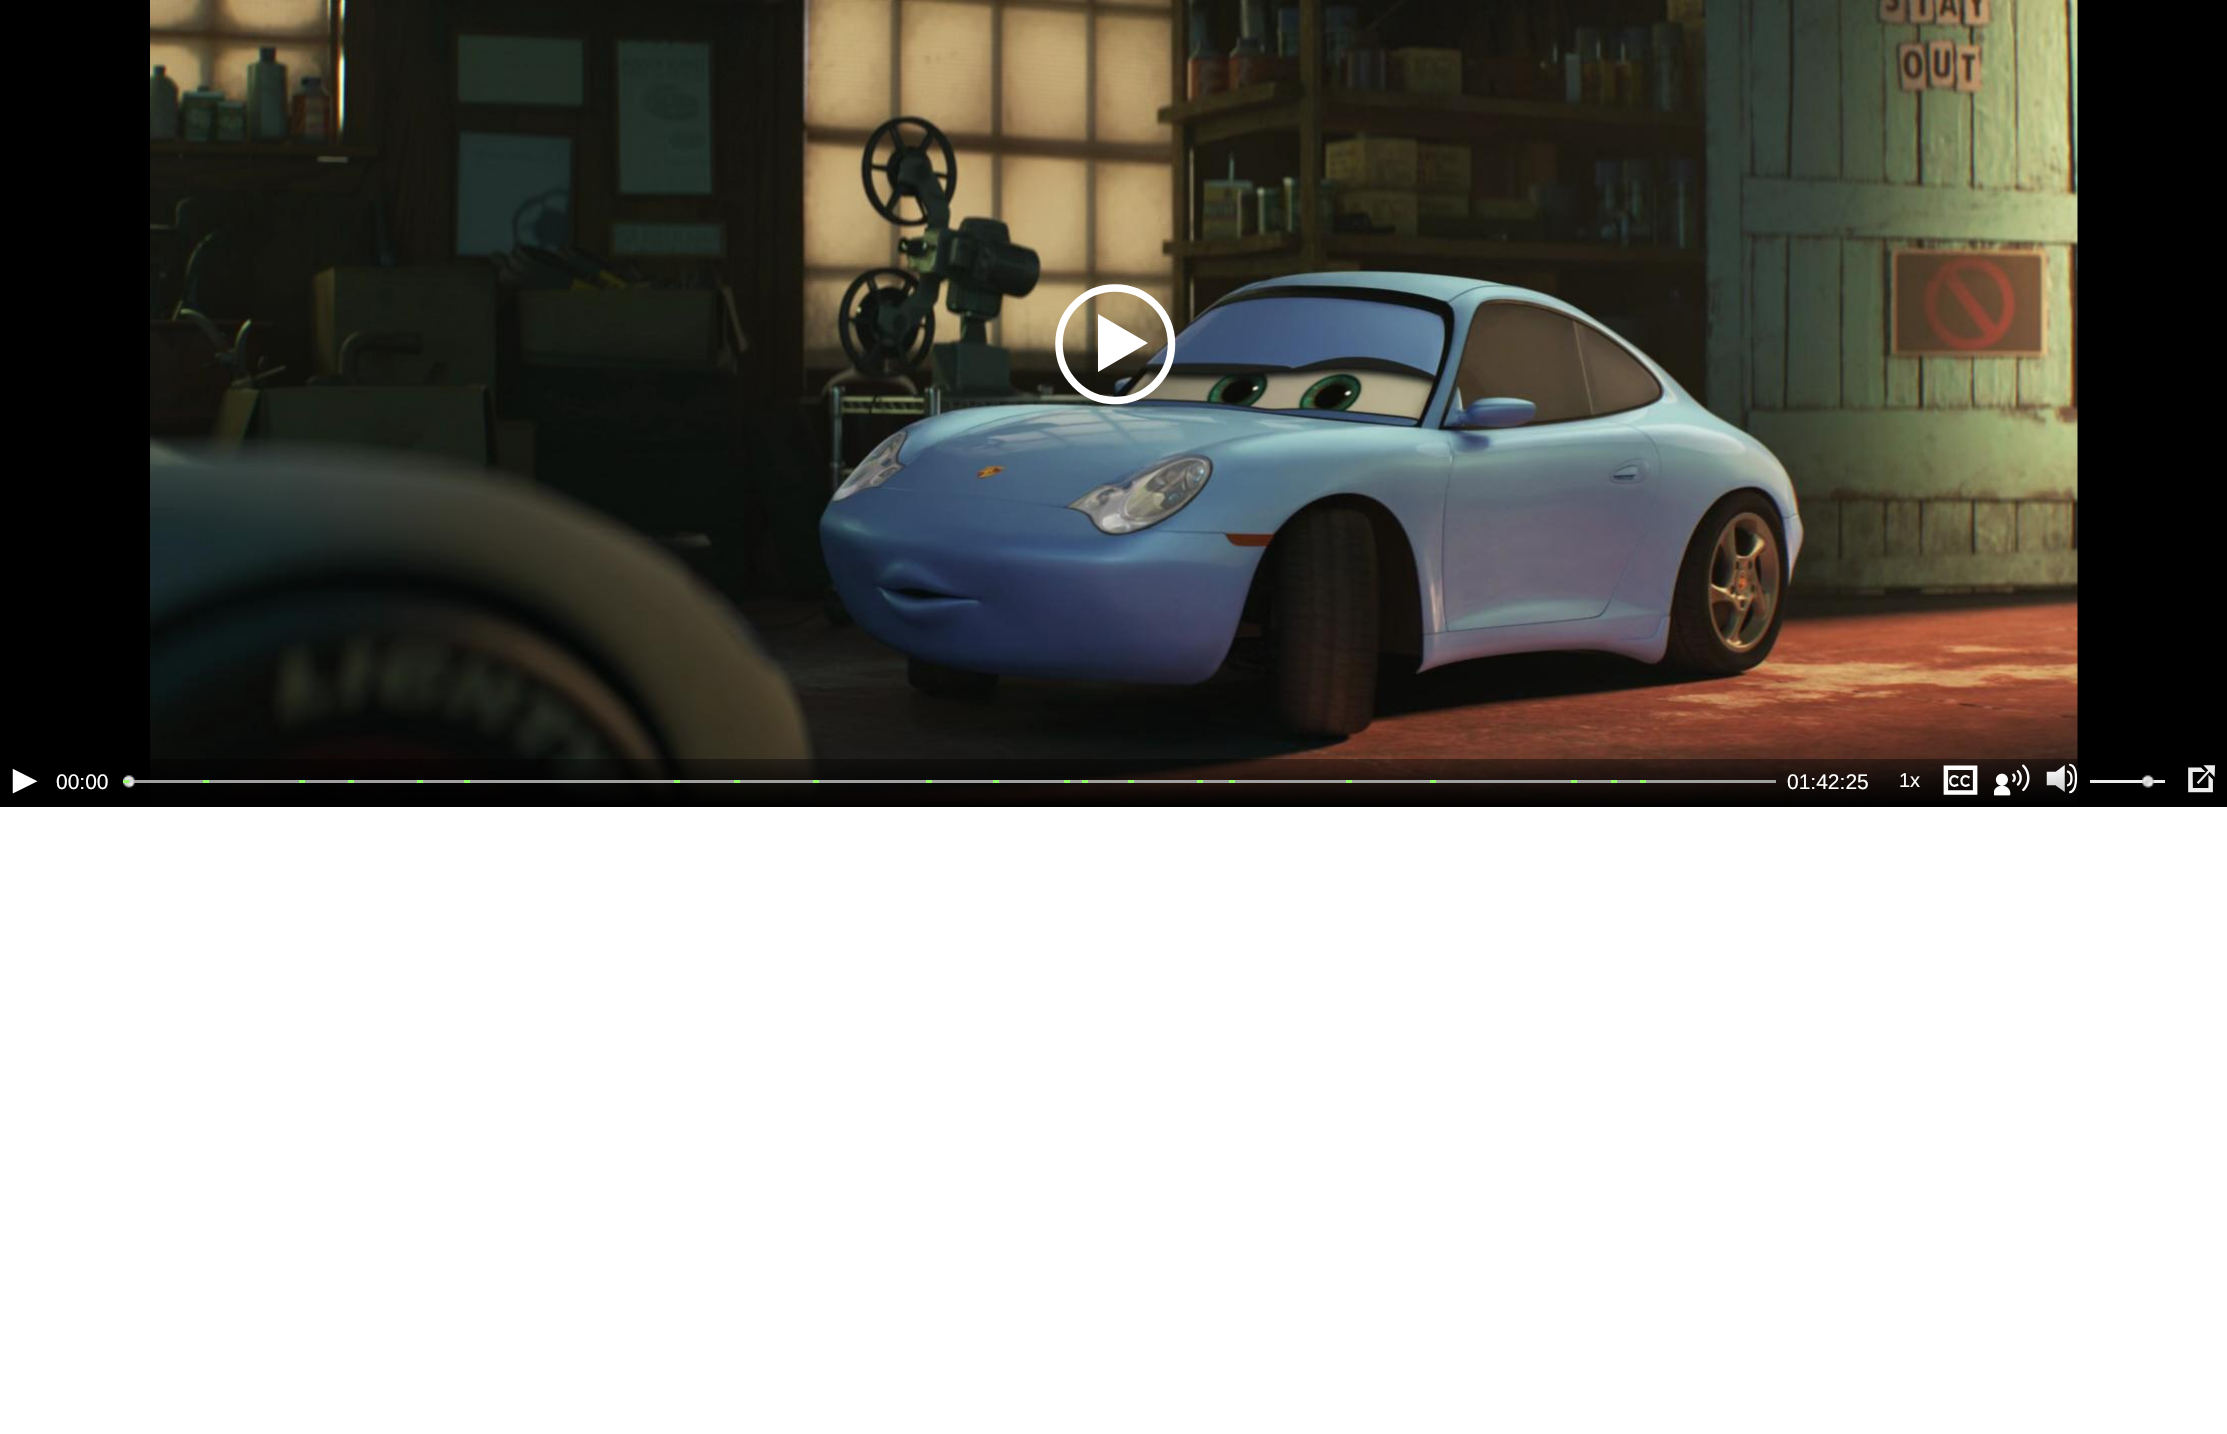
#include "include/core/SkBlurTypes.h"
#include "include/core/SkCanvas.h"
#include "include/core/SkData.h"
#include "include/core/SkFont.h"
#include "include/core/SkFontMgr.h"
#include "include/core/SkImage.h"
#include "include/core/SkMaskFilter.h"
#include "include/core/SkPaint.h"
#include "include/core/SkPathBuilder.h"
#include "include/core/SkTextBlob.h"
#include "include/effects/SkDashPathEffect.h"
#include "include/effects/SkGradientShader.h"
#include "include/utils/SkParsePath.h"

extern sk_sp<SkFontMgr> fontMgr;

void draw(SkCanvas* canvas) {
    SkPaint p;
    p.setAntiAlias(true);
    auto font = [&](const char* family, int weight, float size, bool italic = false) {
        SkFontStyle style(weight, SkFontStyle::kNormal_Width,
            italic ? SkFontStyle::kItalic_Slant : SkFontStyle::kUpright_Slant);
        SkFont result(fontMgr->matchFamilyStyle(family, style), size);
        result.setSubpixel(true);
        return result;
    };
    auto drawPhoto = [&](const char* path, float l, float t, float r, float b) {
        auto image = SkImages::DeferredFromEncodedData(SkData::MakeFromFileName(path));
        canvas->drawImageRect(image, SkRect::MakeLTRB(l, t, r, b), SkSamplingOptions());
    };
    canvas->clear(0xFFFFFFFF);
    p.setColor(0xFF000000);
    canvas->drawRect(SkRect::MakeLTRB(0, 0, 2227, 807), p);
    drawPhoto("media/1.png", 150, 0, 2078, 807);
    p.setColor(0xFFFFFFFF);
    canvas->drawPath(SkPathBuilder().moveTo(1148, 343).lineTo(1098, 372).lineTo(1098, 314).close().detach(), p);
    p.setStyle(SkPaint::kStroke_Style);
    p.setStrokeWidth(7.5f);
    canvas->drawPath(SkPathBuilder().moveTo(1059, 344).cubicTo(1059, 313, 1084, 288, 1115, 288).cubicTo(1146.5f, 288, 1171.5f, 313, 1171.5f, 344).cubicTo(1171.5f, 375.5f, 1146.5f, 400.5f, 1115, 400.5f).cubicTo(1084, 400.5f, 1059, 375.5f, 1059, 344).close().detach(), p);
    p.setStyle(SkPaint::kFill_Style);
    {
        const SkColor colors[] = {0xFF000000, 0x66000000};
        const float stops[] = {0, 1};
        const SkPoint ends[] = {{1114, 807}, {1114, 759}};
        p.setShader(SkGradientShader::MakeLinear(ends, colors, stops, 2, SkTileMode::kClamp));
        p.setAlpha(255);
    }
    canvas->drawRect(SkRect::MakeLTRB(150, 759, 2078, 807), p);
    drawPhoto("media/2.png", 12, 768, 38, 794);
    auto font1 = font("Liberation Sans", 400, 21);
    p.setShader(nullptr);
    p.setColor(0xFFFFFFFF);
    canvas->drawString("00:00", 56, 789, font1, p);
    p.setColor(0xFFA0A0A0);
    canvas->drawRect(SkRect::MakeLTRB(133, 780, 1776, 783), p);
    drawPhoto("media/3.png", 123, 775, 135, 788);
    {
        const struct { float l, t, r, b; SkColor color; } items[] = {
            {123, 780, 129, 783, 0xFF93FF68},
            {203, 780, 209, 783, 0xFF93FF68},
            {299, 780, 305, 783, 0xFF93FF68},
            {348, 780, 354, 783, 0xFF93FF68},
            {417, 780, 423, 783, 0xFF93FF68},
            {464, 780, 470, 783, 0xFF93FF68},
            {674, 780, 680, 783, 0xFF93FF68},
            {734, 780, 740, 783, 0xFF93FF68},
            {813, 780, 819, 783, 0xFF93FF68},
            {926, 780, 932, 783, 0xFF93FF68},
            {993, 780, 999, 783, 0xFF93FF68},
            {1064, 780, 1070, 783, 0xFF93FF68},
            {1082, 780, 1088, 783, 0xFF93FF68},
            {1128, 780, 1134, 783, 0xFF93FF68},
            {1197, 780, 1203, 783, 0xFF93FF68},
            {1229, 780, 1235, 783, 0xFF93FF68},
            {1346, 780, 1352, 783, 0xFF93FF68},
            {1430, 780, 1436, 783, 0xFF93FF68},
            {1571, 780, 1577, 783, 0xFF93FF68},
            {1611, 780, 1617, 783, 0xFF93FF68},
            {1640, 780, 1646, 783, 0xFF93FF68},
        };
        for (auto [l, t, r, b, color] : items) {
            p.setColor(color);
            canvas->drawRect(SkRect::MakeLTRB(l, t, r, b), p);
        }
    }
    p.setColor(0xFFFFFFFF);
    canvas->drawString("01:42:25", 1787, 789, font1, p);
    auto font2 = font("Liberation Sans", 400, 20);
    canvas->drawString("1x", 1899, 787, font2, p);
    drawPhoto("media/4.png", 1943, 765, 1978, 795);
    drawPhoto("media/5.png", 1994, 764, 2030, 796);
    drawPhoto("media/6.png", 2046, 763, 2078, 794);
    p.setColor(0xFFECECEC);
    canvas->drawRect(SkRect::MakeLTRB(2090, 780, 2165, 783), p);
    drawPhoto("media/7.png", 2142, 775, 2154, 788);
    drawPhoto("media/8.png", 2188, 765, 2215, 793);
}
